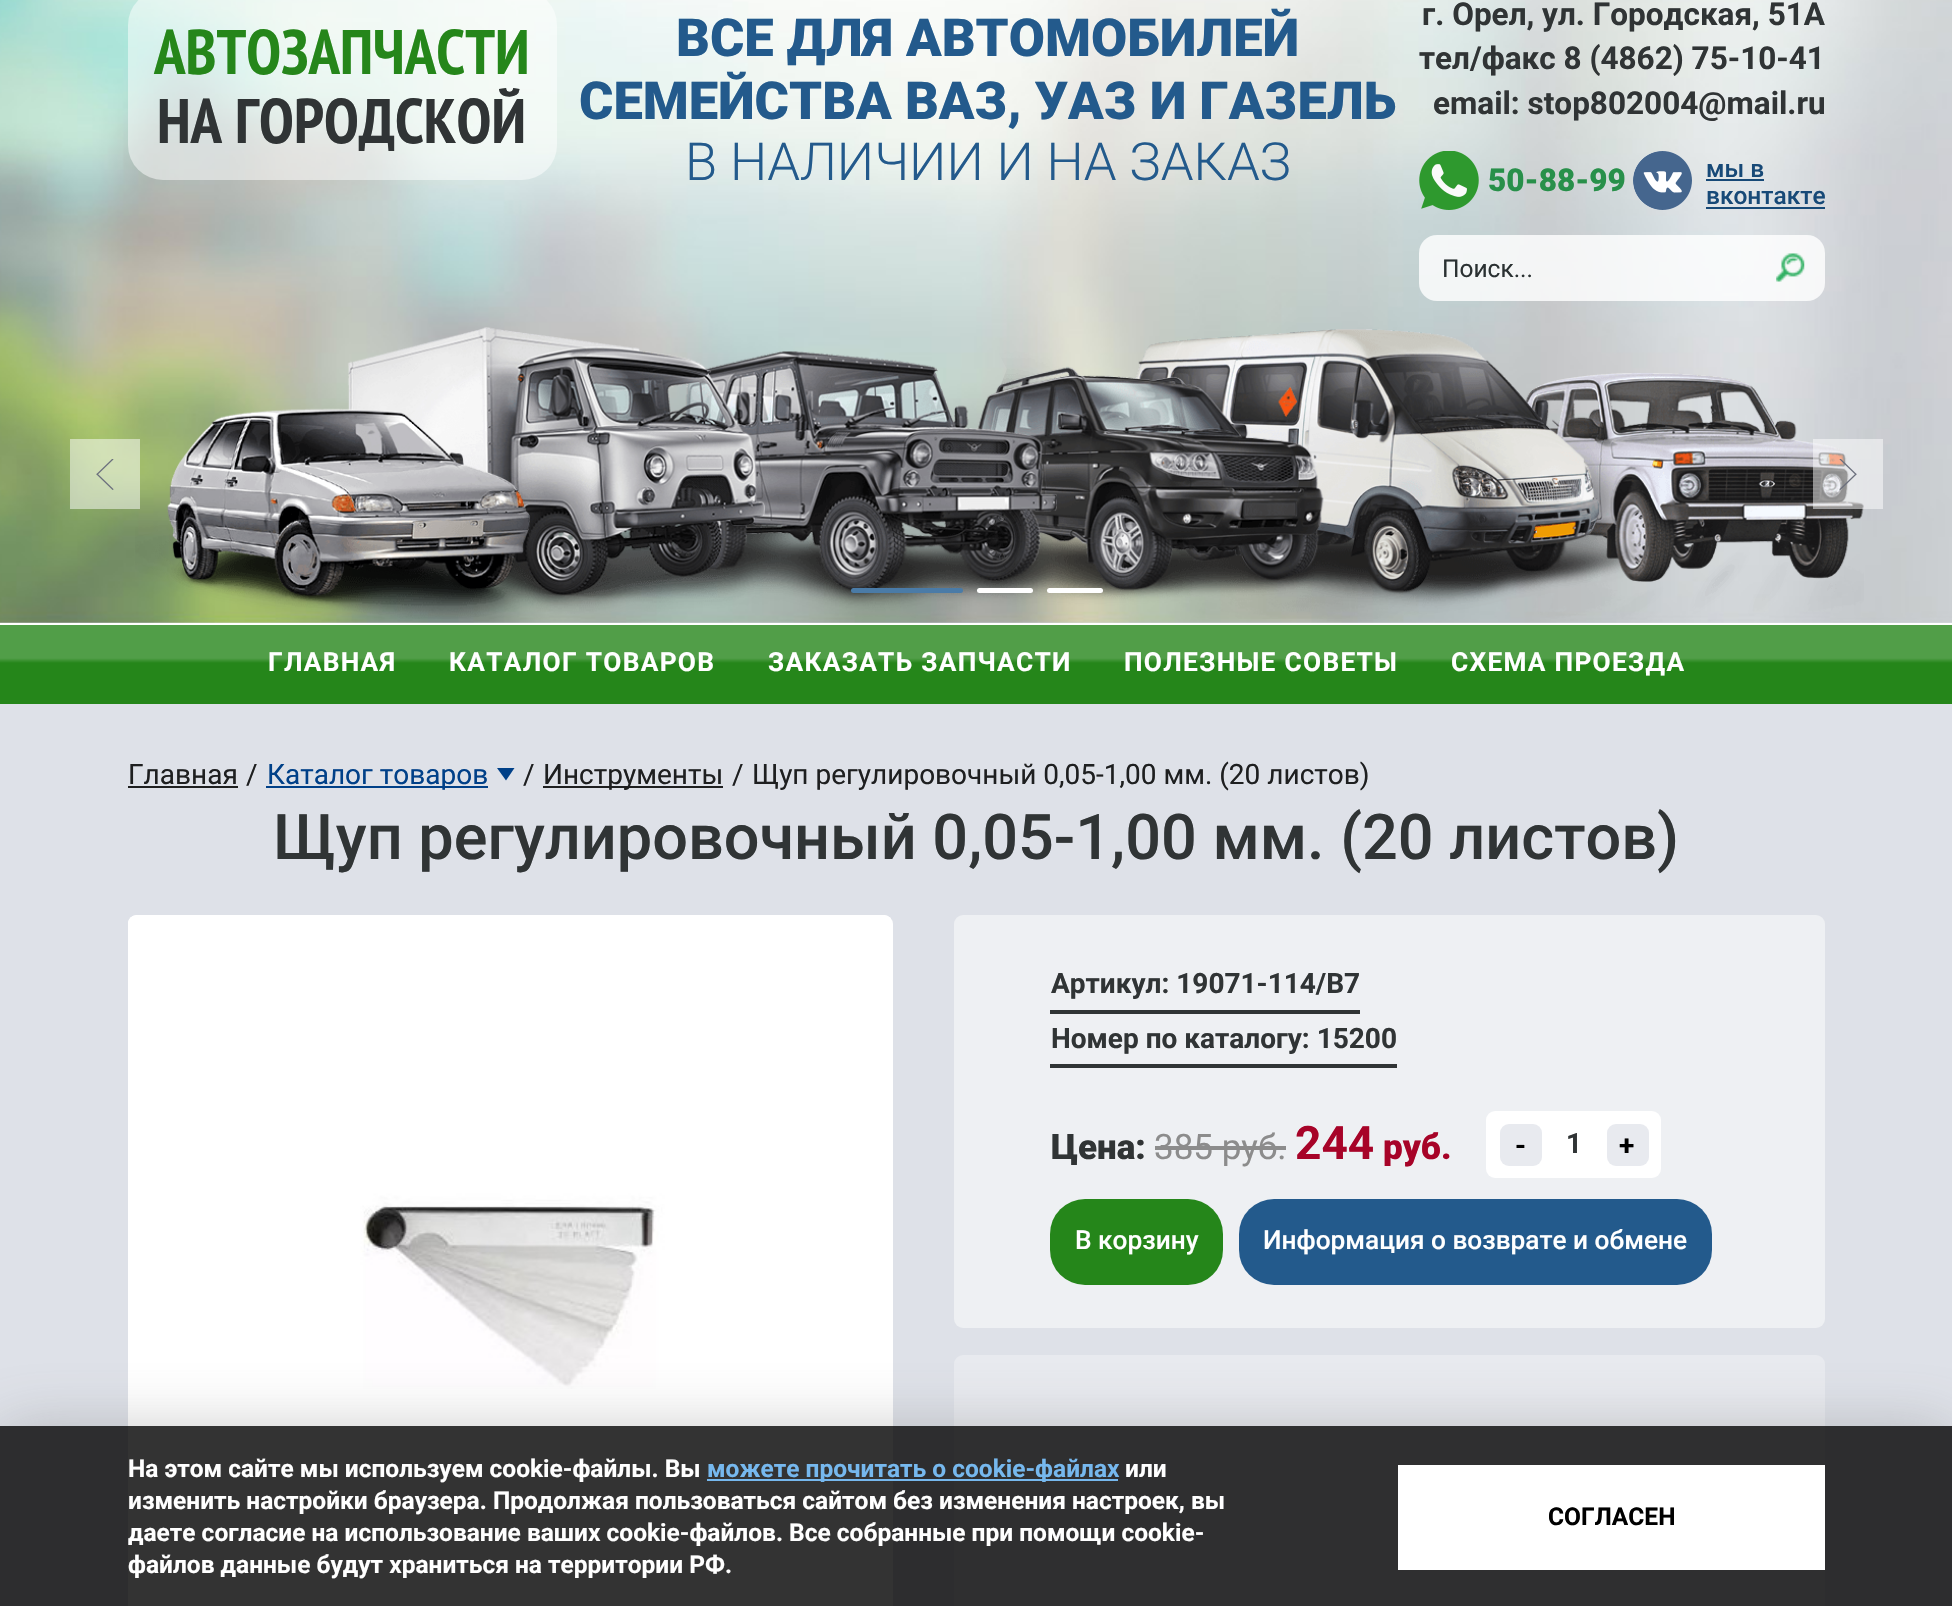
#include "include/core/SkBlurTypes.h"
#include "include/core/SkCanvas.h"
#include "include/core/SkData.h"
#include "include/core/SkFont.h"
#include "include/core/SkFontMgr.h"
#include "include/core/SkImage.h"
#include "include/core/SkMaskFilter.h"
#include "include/core/SkPaint.h"
#include "include/core/SkPathBuilder.h"
#include "include/core/SkTextBlob.h"
#include "include/effects/SkDashPathEffect.h"
#include "include/effects/SkGradientShader.h"
#include "include/utils/SkParsePath.h"

extern sk_sp<SkFontMgr> fontMgr;

void draw(SkCanvas* canvas) {
    SkPaint p;
    p.setAntiAlias(true);
    auto font = [&](const char* family, int weight, float size, bool italic = false) {
        SkFontStyle style(weight, SkFontStyle::kNormal_Width,
            italic ? SkFontStyle::kItalic_Slant : SkFontStyle::kUpright_Slant);
        SkFont result(fontMgr->matchFamilyStyle(family, style), size);
        result.setSubpixel(true);
        return result;
    };
    auto drawTracked = [&](const char* s, float x, float y, const SkFont& font, const SkPaint& ink, float letter, float word) {
        std::vector<SkGlyphID> glyphs(font.countText(s, strlen(s), SkTextEncoding::kUTF8));
        std::vector<float> xs(glyphs.size());
        font.textToGlyphs(s, strlen(s), SkTextEncoding::kUTF8, glyphs);
        font.getXPos(glyphs, xs, x);
        float extra = 0;
        for (size_t i = 0; i < glyphs.size(); i++) {
            xs[i] += extra;
            extra += letter + word * (glyphs[i] == font.unicharToGlyph(' '));
        }
        canvas->drawTextBlob(SkTextBlob::MakeFromPosHGlyphs(glyphs, xs, y, font), 0, 0, ink);
    };
    auto drawPhoto = [&](const char* path, float l, float t, float r, float b) {
        auto image = SkImages::DeferredFromEncodedData(SkData::MakeFromFileName(path));
        canvas->drawImageRect(image, SkRect::MakeLTRB(l, t, r, b), SkSamplingOptions());
    };
    canvas->clear(0xFFDEE1E8);
    drawPhoto("media/1.png", 0, 0, 1952, 623);
    p.setColor(0x80FFFFFF);
    canvas->drawRoundRect(SkRect::MakeLTRB(128, -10, 557, 180), 35, 35, p);
    auto font1 = font("PT Sans Narrow", 700, 63);
    p.setColor(0xFF25861A);
    canvas->drawString("АВТОЗАПЧАСТИ", 154, 74, font1, p);
    p.setColor(0xFF303435);
    canvas->drawString("НА ГОРОДСКОЙ", 157, 143, font1, p);
    auto font2 = font("Roboto", 900, 52.5f);
    p.setColor(0xFF235A8C);
    canvas->drawString("ВСЕ ДЛЯ АВТОМОБИЛЕЙ", 676, 56, font2, p);
    canvas->drawString("СЕМЕЙСТВА ВАЗ, УАЗ И ГАЗЕЛЬ", 579, 119, font2, p);
    auto font3 = font("Roboto", 300, 52.5f);
    canvas->drawString("В НАЛИЧИИ И НА ЗАКАЗ", 685, 180, font3, p);
    auto font4 = font("Roboto", 700, 31.5f);
    p.setColor(0xFF303435);
    {
        const struct { const char* s; float x, y; } items[] = {
            {"г. Орел, ул. Городская, 51А", 1422, 25},
            {"тел/факс 8 (4862) 75-10-41", 1419, 69},
            {"email: stop802004@mail.ru", 1433, 114},
        };
        for (auto [s, x, y] : items) {
            canvas->drawString(s, x, y, font4, p);
        }
    }
    drawPhoto("media/2.png", 1419, 151, 1479, 210);
    auto font5 = font("Roboto", 900, 31.5f);
    p.setColor(0xFF28904A);
    canvas->drawString("50-88-99", 1488, 191, font5, p);
    drawPhoto("media/3.png", 1633, 151, 1692, 210);
    auto font6 = font("Roboto", 500, 24.5f);
    p.setColor(0xFF174977);
    canvas->drawString("мы в", 1706, 177, font6, p);
    canvas->drawRect(SkRect::MakeLTRB(1706, 179, 1764, 181), p);
    canvas->drawString("вконтакте", 1706, 204, font6, p);
    canvas->drawRect(SkRect::MakeLTRB(1706, 207, 1825, 209), p);
    p.setColor(0xCCFFFFFF);
    canvas->drawRoundRect(SkRect::MakeLTRB(1419, 235, 1825, 301), 18, 18, p);
    auto font7 = font("Roboto", 400, 24.5f);
    p.setColor(0xFF2A3132);
    canvas->drawString("Поиск...", 1442, 277, font7, p);
    drawPhoto("media/4.png", 1776, 253, 1805, 282);
    drawPhoto("media/5.png", 135, 327, 1864, 619);
    p.setColor(0x80FFFFFF);
    canvas->drawRect(SkRect::MakeLTRB(70, 439, 140, 509), p);
    drawPhoto("media/6.png", 96, 459, 114, 490);
    canvas->drawRect(SkRect::MakeLTRB(1813, 439, 1883, 509), p);
    drawPhoto("media/7.png", 1839, 459, 1857, 490);
    p.setColor(0xFF4A7BA7);
    canvas->drawRoundRect(SkRect::MakeLTRB(851, 588, 963, 593), 2.5f, 2.5f, p);
    p.setColor(0xFFFFFFFF);
    canvas->drawRoundRect(SkRect::MakeLTRB(977, 588, 1033, 593), 2.5f, 2.5f, p);
    canvas->drawRoundRect(SkRect::MakeLTRB(1047, 588, 1103, 593), 2.5f, 2.5f, p);
    {
        const SkColor colors[] = {0xFF519E48, 0xFF519E48, 0xFF25861A, 0xFF25861A};
        const float stops[] = {0, 0.42f, 0.48f, 1};
        const SkPoint ends[] = {{977, 625}, {977, 704}};
        p.setShader(SkGradientShader::MakeLinear(ends, colors, stops, 4, SkTileMode::kClamp));
        p.setAlpha(255);
    }
    canvas->drawRect(SkRect::MakeLTRB(0, 625, 1952, 704), p);
    p.setShader(nullptr);
    p.setColor(0xFFFFFFFF);
    canvas->drawRect(SkRect::MakeLTRB(0, 623, 1952, 625), p);
    auto font8 = font("Roboto", 700, 26.25f);
    {
        const struct { const char* s; float x, y; } items[] = {
            {"ГЛАВНАЯ", 268, 671},
            {"КАТАЛОГ ТОВАРОВ", 449, 671},
            {"ЗАКАЗАТЬ ЗАПЧАСТИ", 768, 671},
            {"ПОЛЕЗНЫЕ СОВЕТЫ", 1124, 671},
            {"СХЕМА ПРОЕЗДА", 1451, 671},
        };
        for (auto [s, x, y] : items) {
            drawTracked(s, x, y, font8, p, 1.3f, 0);
        }
    }
    auto font9 = font("Roboto", 400, 28);
    p.setColor(0xFF1E1F20);
    canvas->drawString("Главная", 128, 784, font9, p);
    canvas->drawRect(SkRect::MakeLTRB(128, 786, 238, 788), p);
    canvas->drawString("/", 246, 784, font9, p);
    p.setColor(0xFF004088);
    canvas->drawRect(SkRect::MakeLTRB(266, 786, 488, 788), p);
    canvas->drawString("Каталог товаров", 267, 784, font9, p);
    canvas->drawPath(SkPathBuilder().moveTo(497, 768).lineTo(514.5f, 768).lineTo(506, 780.5f).close().detach(), p);
    p.setColor(0xFF1E1F20);
    canvas->drawString("/", 523, 784, font9, p);
    canvas->drawRect(SkRect::MakeLTRB(543, 786, 723, 788), p);
    {
        const struct { const char* s; float x, y; } items[] = {
            {"Инструменты", 543, 784},
            {"/", 732, 784},
            {"Щуп регулировочный 0,05-1,00 мм. (20 листов)", 752, 784},
        };
        for (auto [s, x, y] : items) {
            canvas->drawString(s, x, y, font9, p);
        }
    }
    auto font10 = font("Roboto", 500, 63);
    p.setColor(0xFF303435);
    canvas->drawString("Щуп регулировочный 0,05-1,00 мм. (20 листов)", 273, 859, font10, p);
    p.setColor(0xFFFFFFFF);
    canvas->drawRoundRect(SkRect::MakeLTRB(128, 915, 893, 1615), 9, 9, p);
    drawPhoto("media/8.png", 128, 915, 891, 1389);
    p.setColor(0xFFEEF0F3);
    canvas->drawRoundRect(SkRect::MakeLTRB(954, 915, 1825, 1328), 9, 9, p);
    p.setColor(0xFF303435);
    canvas->drawRect(SkRect::MakeLTRB(1050, 1010, 1360, 1014), p);
    auto font11 = font("Roboto", 700, 28);
    canvas->drawString("Артикул: 19071-114/В7", 1051, 993, font11, p);
    canvas->drawRect(SkRect::MakeLTRB(1050, 1064, 1397, 1068), p);
    canvas->drawString("Номер по каталогу: 15200", 1051, 1048, font11, p);
    auto font12 = font("Roboto", 900, 35);
    canvas->drawString("Цена:", 1051, 1159, font12, p);
    auto font13 = font("Roboto", 400, 35);
    p.setColor(0xFF8C8C8C);
    canvas->drawString("385 руб.", 1154, 1159, font13, p);
    canvas->drawRect(SkRect::MakeLTRB(1155, 1146, 1286, 1150), p);
    auto font14 = font("Roboto", 700, 46);
    p.setColor(0xFFA70328);
    canvas->drawString("244", 1295, 1159, font14, p);
    canvas->drawString("руб.", 1383, 1159, font12, p);
    p.setColor(0xFFFFFFFF);
    canvas->drawRoundRect(SkRect::MakeLTRB(1486, 1111, 1661, 1178), 9, 9, p);
    p.setColor(0xFFE8EAEF);
    canvas->drawRoundRect(SkRect::MakeLTRB(1500, 1124, 1542, 1166), 9, 9, p);
    p.setColor(0xFF000000);
    canvas->drawString("-", 1515, 1155, font11, p);
    p.setColor(0xFF303435);
    canvas->drawString("1", 1566, 1153, font11, p);
    p.setColor(0xFFE8EAEF);
    canvas->drawRoundRect(SkRect::MakeLTRB(1607, 1124, 1649, 1166), 9, 9, p);
    p.setColor(0xFF000000);
    canvas->drawString("+", 1619, 1155, font11, p);
    p.setColor(0xFF25861A);
    canvas->drawRoundRect(SkRect::MakeLTRB(1050, 1199, 1223, 1285), 35, 35, p);
    auto font15 = font("Roboto", 500, 26.25f);
    p.setColor(0xFFFFFFFF);
    canvas->drawString("В корзину", 1075, 1249, font15, p);
    p.setColor(0xFF235A8C);
    canvas->drawRoundRect(SkRect::MakeLTRB(1239, 1199, 1712, 1285), 35, 35, p);
    p.setColor(0xFFFFFFFF);
    canvas->drawString("Информация о возврате и обмене", 1263, 1249, font15, p);
    p.setColor(0xFFE8EAEF);
    canvas->drawRoundRect(SkRect::MakeLTRB(954, 1355, 1825, 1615), 9, 9, p);
    canvas->save();
    canvas->clipPath(SkPathBuilder(SkPathFillType::kEvenOdd).moveTo(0, 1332).lineTo(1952, 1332).lineTo(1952, 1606).lineTo(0, 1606).close().moveTo(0, 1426).lineTo(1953, 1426).lineTo(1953, 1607).lineTo(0, 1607).close().detach(), true);
    p.setColor(0x61636363);
    p.setMaskFilter(SkMaskFilter::MakeBlur(kNormal_SkBlurStyle, 33));
    canvas->drawRect(SkRect::MakeLTRB(0, 1432, 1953, 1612), p);
    p.setMaskFilter(nullptr);
    canvas->restore();
    p.setColor(0xCC000000);
    canvas->drawRect(SkRect::MakeLTRB(0, 1426, 1952, 1606), p);
    auto font16 = font("Roboto", 700, 24.5f);
    p.setColor(0xFFFFFFFF);
    canvas->drawString("На этом сайте мы используем cookie-файлы. Вы", 128, 1477, font16, p);
    p.setColor(0xFF76B8EE);
    canvas->drawRect(SkRect::MakeLTRB(707, 1479, 1118, 1481), p);
    canvas->drawString("можете прочитать о cookie-файлах", 707, 1477, font16, p);
    p.setColor(0xFFFFFFFF);
    {
        const struct { const char* s; float x, y; } items[] = {
            {"или", 1125, 1477},
            {"изменить настройки браузера. Продолжая пользоваться сайтом без изменения настроек, вы", 128, 1509},
            {"даете согласие на использование ваших cookie-файлов. Все собранные при помощи cookie-", 128, 1541},
            {"файлов данные будут храниться на территории РФ.", 128, 1573},
        };
        for (auto [s, x, y] : items) {
            canvas->drawString(s, x, y, font16, p);
        }
    }
    canvas->drawRect(SkRect::MakeLTRB(1398, 1465, 1825, 1570), p);
    p.setColor(0xFF000000);
    canvas->drawString("СОГЛАСЕН", 1548, 1525, font16, p);
}
